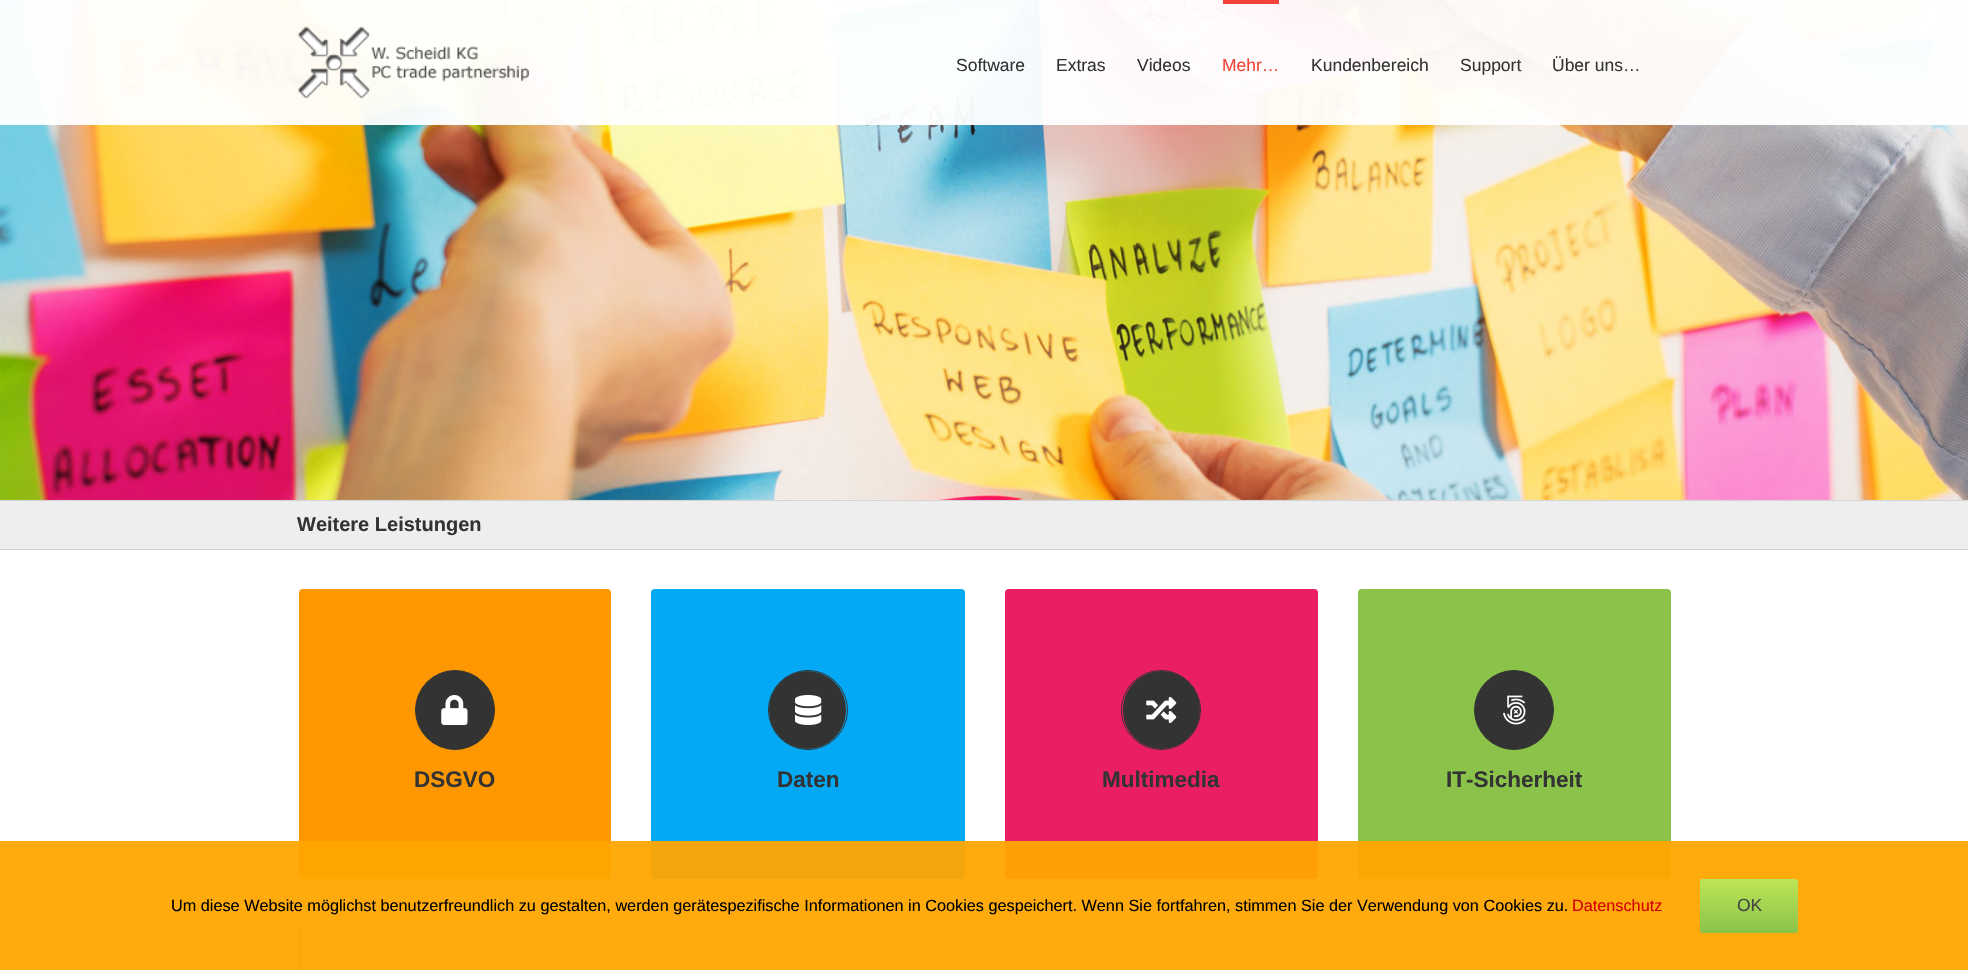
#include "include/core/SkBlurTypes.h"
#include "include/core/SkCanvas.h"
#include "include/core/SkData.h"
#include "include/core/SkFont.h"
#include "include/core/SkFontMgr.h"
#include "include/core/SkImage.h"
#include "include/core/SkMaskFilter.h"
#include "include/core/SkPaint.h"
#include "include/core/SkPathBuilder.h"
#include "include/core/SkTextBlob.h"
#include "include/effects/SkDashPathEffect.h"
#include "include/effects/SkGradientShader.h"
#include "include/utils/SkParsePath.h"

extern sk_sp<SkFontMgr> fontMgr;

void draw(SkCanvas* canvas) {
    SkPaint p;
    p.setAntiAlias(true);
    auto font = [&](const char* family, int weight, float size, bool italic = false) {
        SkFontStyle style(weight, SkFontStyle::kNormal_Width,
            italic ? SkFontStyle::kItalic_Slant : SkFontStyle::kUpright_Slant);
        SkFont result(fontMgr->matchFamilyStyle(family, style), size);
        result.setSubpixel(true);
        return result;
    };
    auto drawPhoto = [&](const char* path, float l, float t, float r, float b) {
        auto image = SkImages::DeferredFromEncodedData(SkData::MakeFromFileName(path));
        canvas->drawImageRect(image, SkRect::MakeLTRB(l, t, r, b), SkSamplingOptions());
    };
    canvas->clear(0xFFFFFFFF);
    drawPhoto("media/1.png", 0, 0, 1968, 500);
    p.setColor(0xF2FFFFFF);
    canvas->drawRect(SkRect::MakeLTRB(0, 0, 1968, 125), p);
    drawPhoto("media/2.png", 297, 26, 529, 99);
    auto font1 = font("Liberation Sans", 400, 17.5f);
    p.setColor(0xFF333333);
    {
        const struct { const char* s; float x, y; } items[] = {
            {"Software", 956, 71},
            {"Extras", 1056, 71},
            {"Videos", 1137, 71},
        };
        for (auto [s, x, y] : items) {
            canvas->drawString(s, x, y, font1, p);
        }
    }
    p.setColor(0xFFF44336);
    canvas->drawRect(SkRect::MakeLTRB(1223, 0, 1279, 4), p);
    canvas->drawString("Mehr…", 1222, 71, font1, p);
    p.setColor(0xFF333333);
    {
        const struct { const char* s; float x, y; } items[] = {
            {"Kundenbereich", 1311, 71},
            {"Support", 1460, 71},
            {"Über uns…", 1552, 71},
        };
        for (auto [s, x, y] : items) {
            canvas->drawString(s, x, y, font1, p);
        }
    }
    {
        const struct { float l, t, r, b; SkColor color; } items[] = {
            {0, 501, 1968, 549, 0xFFEEEEEE},
            {0, 500, 1968, 501, 0xFFD2D3D4},
            {0, 549, 1968, 550, 0xFFD2D3D4},
        };
        for (auto [l, t, r, b, color] : items) {
            p.setColor(color);
            canvas->drawRect(SkRect::MakeLTRB(l, t, r, b), p);
        }
    }
    auto font2 = font("Liberation Sans", 700, 20);
    p.setColor(0xFF333333);
    canvas->drawString("Weitere Leistungen", 297, 531, font2, p);
    p.setColor(0xFFFF9800);
    canvas->drawRoundRect(SkRect::MakeLTRB(299, 589, 611, 879), 4, 4, p);
    p.setColor(0xFF333333);
    canvas->drawCircle(455, 710, 39.5f, p);
    p.setStyle(SkPaint::kStroke_Style);
    p.setStrokeWidth(1);
    canvas->drawCircle(455, 710, 39.5f, p);
    drawPhoto("media/3.png", 441, 695, 468, 725);
    auto font3 = font("Liberation Sans", 700, 22.5f);
    p.setStyle(SkPaint::kFill_Style);
    canvas->drawString("DSGVO", 414, 787, font3, p);
    p.setColor(0xFF03A9F4);
    canvas->drawRoundRect(SkRect::MakeLTRB(651, 589, 965, 879), 4, 4, p);
    p.setColor(0xFF333333);
    canvas->drawRoundRect(SkRect::MakeLTRB(769, 671, 846, 749), 38.5f, 38.5f, p);
    p.setStyle(SkPaint::kStroke_Style);
    canvas->drawCircle(808, 710, 39.5f, p);
    drawPhoto("media/4.png", 795, 695, 822, 725);
    p.setStyle(SkPaint::kFill_Style);
    canvas->drawString("Daten", 777, 787, font3, p);
    p.setColor(0xFFE91E63);
    canvas->drawRoundRect(SkRect::MakeLTRB(1005, 589, 1318, 879), 4, 4, p);
    p.setColor(0xFF333333);
    canvas->drawRoundRect(SkRect::MakeLTRB(1123, 671, 1200, 749), 38.5f, 38.5f, p);
    p.setStyle(SkPaint::kStroke_Style);
    canvas->drawCircle(1161, 710, 39.5f, p);
    drawPhoto("media/5.png", 1146, 696, 1177, 724);
    p.setStyle(SkPaint::kFill_Style);
    canvas->drawString("Multimedia", 1102, 787, font3, p);
    p.setColor(0xFF8BC34A);
    canvas->drawRoundRect(SkRect::MakeLTRB(1358, 589, 1671, 879), 4, 4, p);
    p.setColor(0xFF333333);
    canvas->drawCircle(1514, 710, 39.5f, p);
    p.setStyle(SkPaint::kStroke_Style);
    canvas->drawCircle(1514, 710, 39.5f, p);
    drawPhoto("media/6.png", 1503, 695, 1526, 725);
    p.setStyle(SkPaint::kFill_Style);
    canvas->drawString("IT-Sicherheit", 1446, 787, font3, p);
    p.setColor(0xFFEEEEEE);
    canvas->drawRect(SkRect::MakeLTRB(301, 931, 1671, 970), p);
    p.setColor(0xFFD2D3D4);
    canvas->drawPath(SkPathBuilder().moveTo(298, 930).lineTo(1672, 930).lineTo(1671, 931).lineTo(301, 931).close().detach(), p);
    canvas->drawRect(SkRect::MakeLTRB(1671, 930, 1672, 970), p);
    p.setColor(0xFF9E9E9E);
    canvas->drawPath(SkPathBuilder().moveTo(298, 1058).lineTo(298, 930).lineTo(301, 931).lineTo(301, 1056).close().detach(), p);
    p.setColor(0xF2FFA500);
    canvas->drawRect(SkRect::MakeLTRB(0, 841, 1968, 970), p);
    auto font4 = font("Liberation Sans", 400, 16.25f);
    p.setColor(0xFF000000);
    canvas->drawString("Um diese Website möglichst benutzerfreundlich zu gestalten, werden gerätespezifische Informationen in Cookies gespeichert. Wenn Sie fortfahren, stimmen Sie der Verwendung von Cookies zu.", 171, 911, font4, p);
    p.setColor(0xFFD30003);
    canvas->drawString("Datenschutz", 1572, 911, font4, p);
    {
        const SkColor colors[] = {0xFFBDE557, 0xFF8BC34A};
        const float stops[] = {0, 1};
        const SkPoint ends[] = {{1749, 879}, {1749, 933}};
        p.setShader(SkGradientShader::MakeLinear(ends, colors, stops, 2, SkTileMode::kClamp));
        p.setAlpha(255);
    }
    canvas->drawRoundRect(SkRect::MakeLTRB(1700, 879, 1798, 933), 2.5f, 2.5f, p);
    p.setShader(nullptr);
    p.setColor(0xFF444444);
    canvas->drawString("OK", 1737, 911, font1, p);
}
